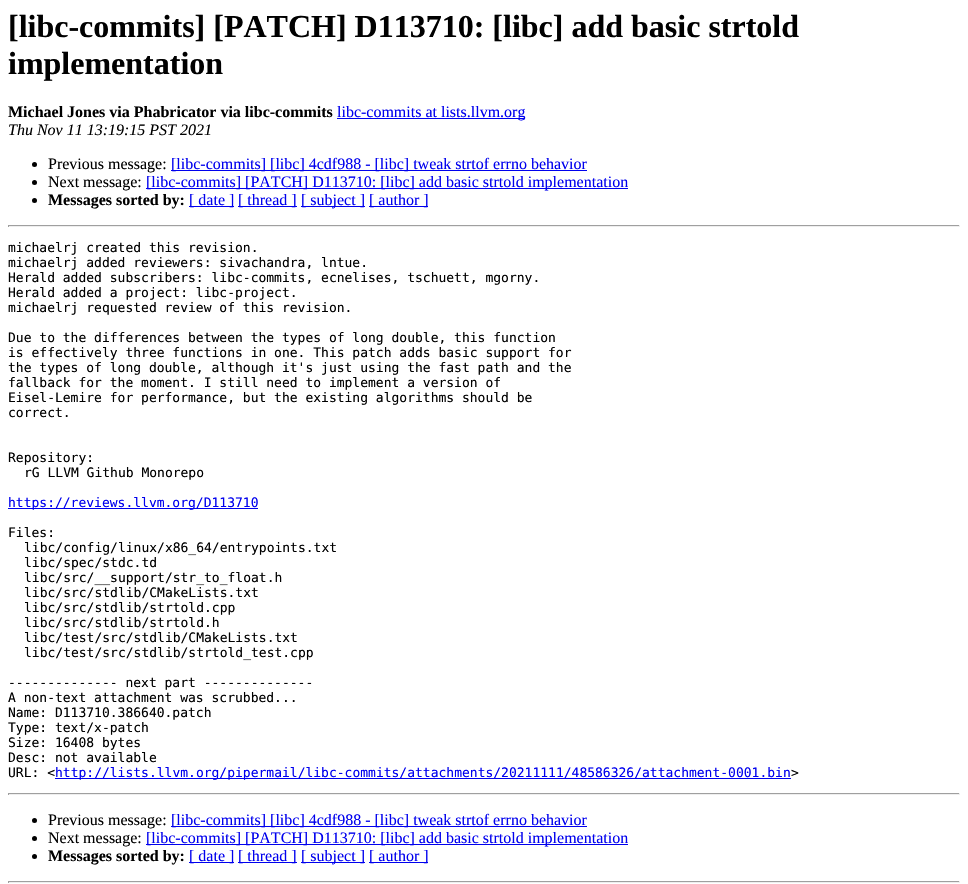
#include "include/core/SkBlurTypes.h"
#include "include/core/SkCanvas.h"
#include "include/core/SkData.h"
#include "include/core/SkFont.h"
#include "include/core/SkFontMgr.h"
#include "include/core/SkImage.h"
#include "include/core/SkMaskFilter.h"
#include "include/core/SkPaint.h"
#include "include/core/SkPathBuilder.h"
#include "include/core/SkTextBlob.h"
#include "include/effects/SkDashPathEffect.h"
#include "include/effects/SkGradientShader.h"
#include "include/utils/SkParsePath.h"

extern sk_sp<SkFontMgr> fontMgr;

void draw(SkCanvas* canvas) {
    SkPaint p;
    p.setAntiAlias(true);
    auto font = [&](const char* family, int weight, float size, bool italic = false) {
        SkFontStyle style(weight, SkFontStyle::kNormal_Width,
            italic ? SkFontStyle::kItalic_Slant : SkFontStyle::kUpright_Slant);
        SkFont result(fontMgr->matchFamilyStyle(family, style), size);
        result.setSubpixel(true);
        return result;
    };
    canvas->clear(0xFFFFFFFF);
    auto font1 = font("Liberation Serif", 700, 32);
    p.setColor(0xFF000000);
    canvas->drawString("[libc-commits] [PATCH] D113710: [libc] add basic strtold", 8, 37, font1, p);
    canvas->drawString("implementation", 8, 74, font1, p);
    auto font2 = font("Liberation Serif", 700, 16);
    canvas->drawString("Michael Jones via Phabricator via libc-commits", 8, 117, font2, p);
    p.setColor(0xFF0000EE);
    canvas->drawRect(SkRect::MakeLTRB(337, 118, 525, 119), p);
    auto font3 = font("Liberation Serif", 400, 16);
    canvas->drawString("libc-commits at lists.llvm.org", 337, 117, font3, p);
    auto font4 = font("Liberation Serif", 400, 16, true);
    p.setColor(0xFF000000);
    canvas->drawString("Thu Nov 11 13:19:15 PST 2021", 8, 135, font4, p);
    canvas->drawCircle(34.5f, 164.5f, 2.5f, p);
    canvas->drawString("Previous message:", 48, 169, font3, p);
    p.setColor(0xFF0000EE);
    canvas->drawRect(SkRect::MakeLTRB(171, 170, 587, 171), p);
    canvas->drawString("[libc-commits] [libc] 4cdf988 - [libc] tweak strtof errno behavior", 171, 169, font3, p);
    p.setColor(0xFF000000);
    canvas->drawCircle(34.5f, 182.5f, 2.5f, p);
    canvas->drawString("Next message:", 48, 187, font3, p);
    p.setColor(0xFF0000EE);
    canvas->drawRect(SkRect::MakeLTRB(146, 188, 628, 189), p);
    canvas->drawString("[libc-commits] [PATCH] D113710: [libc] add basic strtold implementation", 146, 187, font3, p);
    p.setColor(0xFF000000);
    canvas->drawCircle(34.5f, 200.5f, 2.5f, p);
    canvas->drawString("Messages sorted by:", 48, 205, font2, p);
    p.setColor(0xFF0000EE);
    canvas->drawRect(SkRect::MakeLTRB(189, 206, 234, 207), p);
    canvas->drawString("[ date ]", 189, 205, font3, p);
    canvas->drawRect(SkRect::MakeLTRB(238, 206, 297, 207), p);
    canvas->drawString("[ thread ]", 238, 205, font3, p);
    canvas->drawRect(SkRect::MakeLTRB(301, 206, 365, 207), p);
    canvas->drawString("[ subject ]", 301, 205, font3, p);
    canvas->drawRect(SkRect::MakeLTRB(369, 206, 428, 207), p);
    canvas->drawString("[ author ]", 369, 205, font3, p);
    {
        const struct { float l, t, r, b; SkColor color; } items[] = {
            {8, 225, 960, 226, 0xFF9F9F9F},
            {959, 225, 960, 227, 0xFFEEEEEE},
            {8, 226, 960, 227, 0xFFEEEEEE},
            {8, 225, 9, 227, 0xFF9F9F9F},
        };
        for (auto [l, t, r, b, color] : items) {
            p.setColor(color);
            canvas->drawRect(SkRect::MakeLTRB(l, t, r, b), p);
        }
    }
    auto font5 = font("DejaVu Sans Mono", 400, 13);
    p.setColor(0xFF000000);
    {
        const struct { const char* s; float x, y; } items[] = {
            {"michaelrj created this revision.", 8, 252},
            {"michaelrj added reviewers: sivachandra, lntue.", 8, 267},
            {"Herald added subscribers: libc-commits, ecnelises, tschuett, mgorny.", 8, 282},
            {"Herald added a project: libc-project.", 8, 297},
            {"michaelrj requested review of this revision.", 8, 312},
            {"Due to the differences between the types of long double, this function", 8, 342},
            {"is effectively three functions in one. This patch adds basic support for", 8, 357},
            {"the types of long double, although it's just using the fast path and the", 8, 372},
            {"fallback for the moment. I still need to implement a version of", 8, 387},
            {"Eisel-Lemire for performance, but the existing algorithms should be", 8, 402},
            {"correct.", 8, 417},
            {"Repository:", 8, 462},
            {"rG LLVM Github Monorepo", 24, 477},
        };
        for (auto [s, x, y] : items) {
            canvas->drawString(s, x, y, font5, p);
        }
    }
    p.setColor(0xFF0000EE);
    canvas->drawRect(SkRect::MakeLTRB(8, 508, 258, 509), p);
    canvas->drawString("https://reviews.llvm.org/D113710", 8, 507, font5, p);
    p.setColor(0xFF000000);
    {
        const struct { const char* s; float x, y; } items[] = {
            {"Files:", 8, 537},
            {"libc/config/linux/x86_64/entrypoints.txt", 24, 552},
            {"libc/spec/stdc.td", 24, 567},
            {"libc/src/__support/str_to_float.h", 24, 582},
            {"libc/src/stdlib/CMakeLists.txt", 24, 597},
            {"libc/src/stdlib/strtold.cpp", 24, 612},
            {"libc/src/stdlib/strtold.h", 24, 627},
            {"libc/test/src/stdlib/CMakeLists.txt", 24, 642},
            {"libc/test/src/stdlib/strtold_test.cpp", 24, 657},
            {"-------------- next part --------------", 8, 687},
            {"A non-text attachment was scrubbed...", 8, 702},
            {"Name: D113710.386640.patch", 8, 717},
            {"Type: text/x-patch", 8, 732},
            {"Size: 16408 bytes", 8, 747},
            {"Desc: not available", 8, 762},
            {"URL: <", 8, 777},
        };
        for (auto [s, x, y] : items) {
            canvas->drawString(s, x, y, font5, p);
        }
    }
    p.setColor(0xFF0000EE);
    canvas->drawRect(SkRect::MakeLTRB(55, 778, 791, 779), p);
    canvas->drawString("http://lists.llvm.org/pipermail/libc-commits/attachments/20211111/48586326/attachment-0001.bin", 55, 777, font5, p);
    p.setColor(0xFF000000);
    canvas->drawString(">", 791, 777, font5, p);
    {
        const struct { float l, t, r, b; SkColor color; } items[] = {
            {8, 793, 960, 794, 0xFF9F9F9F},
            {959, 793, 960, 795, 0xFFEEEEEE},
            {8, 794, 960, 795, 0xFFEEEEEE},
            {8, 793, 9, 795, 0xFF9F9F9F},
        };
        for (auto [l, t, r, b, color] : items) {
            p.setColor(color);
            canvas->drawRect(SkRect::MakeLTRB(l, t, r, b), p);
        }
    }
    p.setColor(0xFF000000);
    canvas->drawCircle(34.5f, 820.5f, 2.5f, p);
    canvas->drawString("Previous message:", 48, 825, font3, p);
    p.setColor(0xFF0000EE);
    canvas->drawRect(SkRect::MakeLTRB(171, 826, 587, 827), p);
    canvas->drawString("[libc-commits] [libc] 4cdf988 - [libc] tweak strtof errno behavior", 171, 825, font3, p);
    p.setColor(0xFF000000);
    canvas->drawCircle(34.5f, 838.5f, 2.5f, p);
    canvas->drawString("Next message:", 48, 843, font3, p);
    p.setColor(0xFF0000EE);
    canvas->drawRect(SkRect::MakeLTRB(146, 844, 628, 845), p);
    canvas->drawString("[libc-commits] [PATCH] D113710: [libc] add basic strtold implementation", 146, 843, font3, p);
    p.setColor(0xFF000000);
    canvas->drawCircle(34.5f, 856.5f, 2.5f, p);
    canvas->drawString("Messages sorted by:", 48, 861, font2, p);
    p.setColor(0xFF0000EE);
    canvas->drawRect(SkRect::MakeLTRB(189, 862, 234, 863), p);
    canvas->drawString("[ date ]", 189, 861, font3, p);
    canvas->drawRect(SkRect::MakeLTRB(238, 862, 297, 863), p);
    canvas->drawString("[ thread ]", 238, 861, font3, p);
    canvas->drawRect(SkRect::MakeLTRB(301, 862, 365, 863), p);
    canvas->drawString("[ subject ]", 301, 861, font3, p);
    canvas->drawRect(SkRect::MakeLTRB(369, 862, 428, 863), p);
    canvas->drawString("[ author ]", 369, 861, font3, p);
    {
        const struct { float l, t, r, b; SkColor color; } items[] = {
            {8, 881, 960, 882, 0xFF9F9F9F},
            {959, 881, 960, 883, 0xFFEEEEEE},
            {8, 882, 960, 883, 0xFFEEEEEE},
            {8, 881, 9, 883, 0xFF9F9F9F},
        };
        for (auto [l, t, r, b, color] : items) {
            p.setColor(color);
            canvas->drawRect(SkRect::MakeLTRB(l, t, r, b), p);
        }
    }
}
